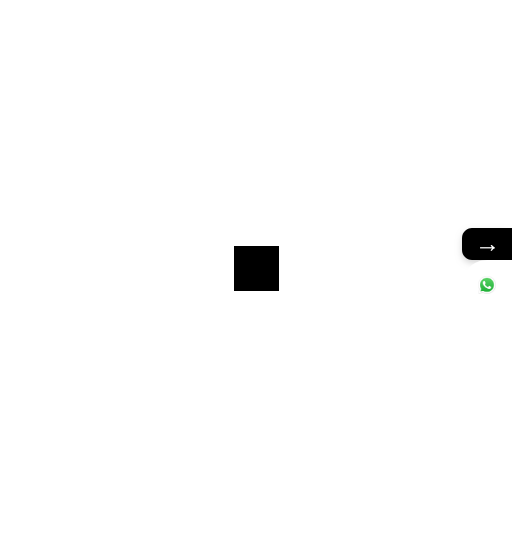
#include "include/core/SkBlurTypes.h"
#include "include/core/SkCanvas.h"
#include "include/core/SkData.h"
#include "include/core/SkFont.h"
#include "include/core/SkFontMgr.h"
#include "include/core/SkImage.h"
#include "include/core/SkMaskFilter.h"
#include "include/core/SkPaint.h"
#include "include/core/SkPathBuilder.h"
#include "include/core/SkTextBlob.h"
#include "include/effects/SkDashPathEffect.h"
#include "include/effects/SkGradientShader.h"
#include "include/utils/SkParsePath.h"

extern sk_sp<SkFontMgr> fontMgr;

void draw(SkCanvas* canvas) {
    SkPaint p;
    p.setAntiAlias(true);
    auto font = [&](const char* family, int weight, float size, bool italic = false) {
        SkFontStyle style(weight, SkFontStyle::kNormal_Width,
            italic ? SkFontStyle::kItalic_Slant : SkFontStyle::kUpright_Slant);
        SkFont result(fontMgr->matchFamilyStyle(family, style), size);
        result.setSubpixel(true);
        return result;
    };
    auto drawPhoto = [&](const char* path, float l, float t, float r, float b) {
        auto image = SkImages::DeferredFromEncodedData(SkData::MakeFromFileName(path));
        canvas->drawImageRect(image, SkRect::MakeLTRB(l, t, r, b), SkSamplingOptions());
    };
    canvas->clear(0xFFFFFFFF);
    p.setColor(0xFF000000);
    canvas->drawRect(SkRect::MakeLTRB(234, 246, 279, 291), p);
    p.setColor(0x29000000);
    p.setMaskFilter(SkMaskFilter::MakeBlur(kNormal_SkBlurStyle, 3));
    canvas->drawRoundRect(SkRect::MakeLTRB(462, 231, 512, 263), 10, 10, p);
    p.setMaskFilter(nullptr);
    p.setColor(0xFF000000);
    canvas->drawPath(SkPathBuilder().moveTo(472, 228).lineTo(512, 228).lineTo(512, 260).lineTo(472, 260).cubicTo(466.5f, 260, 462, 255.5f, 462, 250).lineTo(462, 238).cubicTo(462, 232.5f, 466.5f, 228, 472, 228).close().detach(), p);
    auto font1 = font("Liberation Serif", 400, 25);
    p.setColor(0xFFFFFFFF);
    canvas->drawString("→", 475, 252, font1, p);
    canvas->drawPath(SkPathBuilder().moveTo(487, 260).lineTo(512, 260).lineTo(512, 310).lineTo(487, 310).cubicTo(473, 310, 462, 299, 462, 285).cubicTo(462, 271, 473, 260, 487, 260).close().detach(), p);
    drawPhoto("media/1.png", 478, 276, 496, 294);
}
